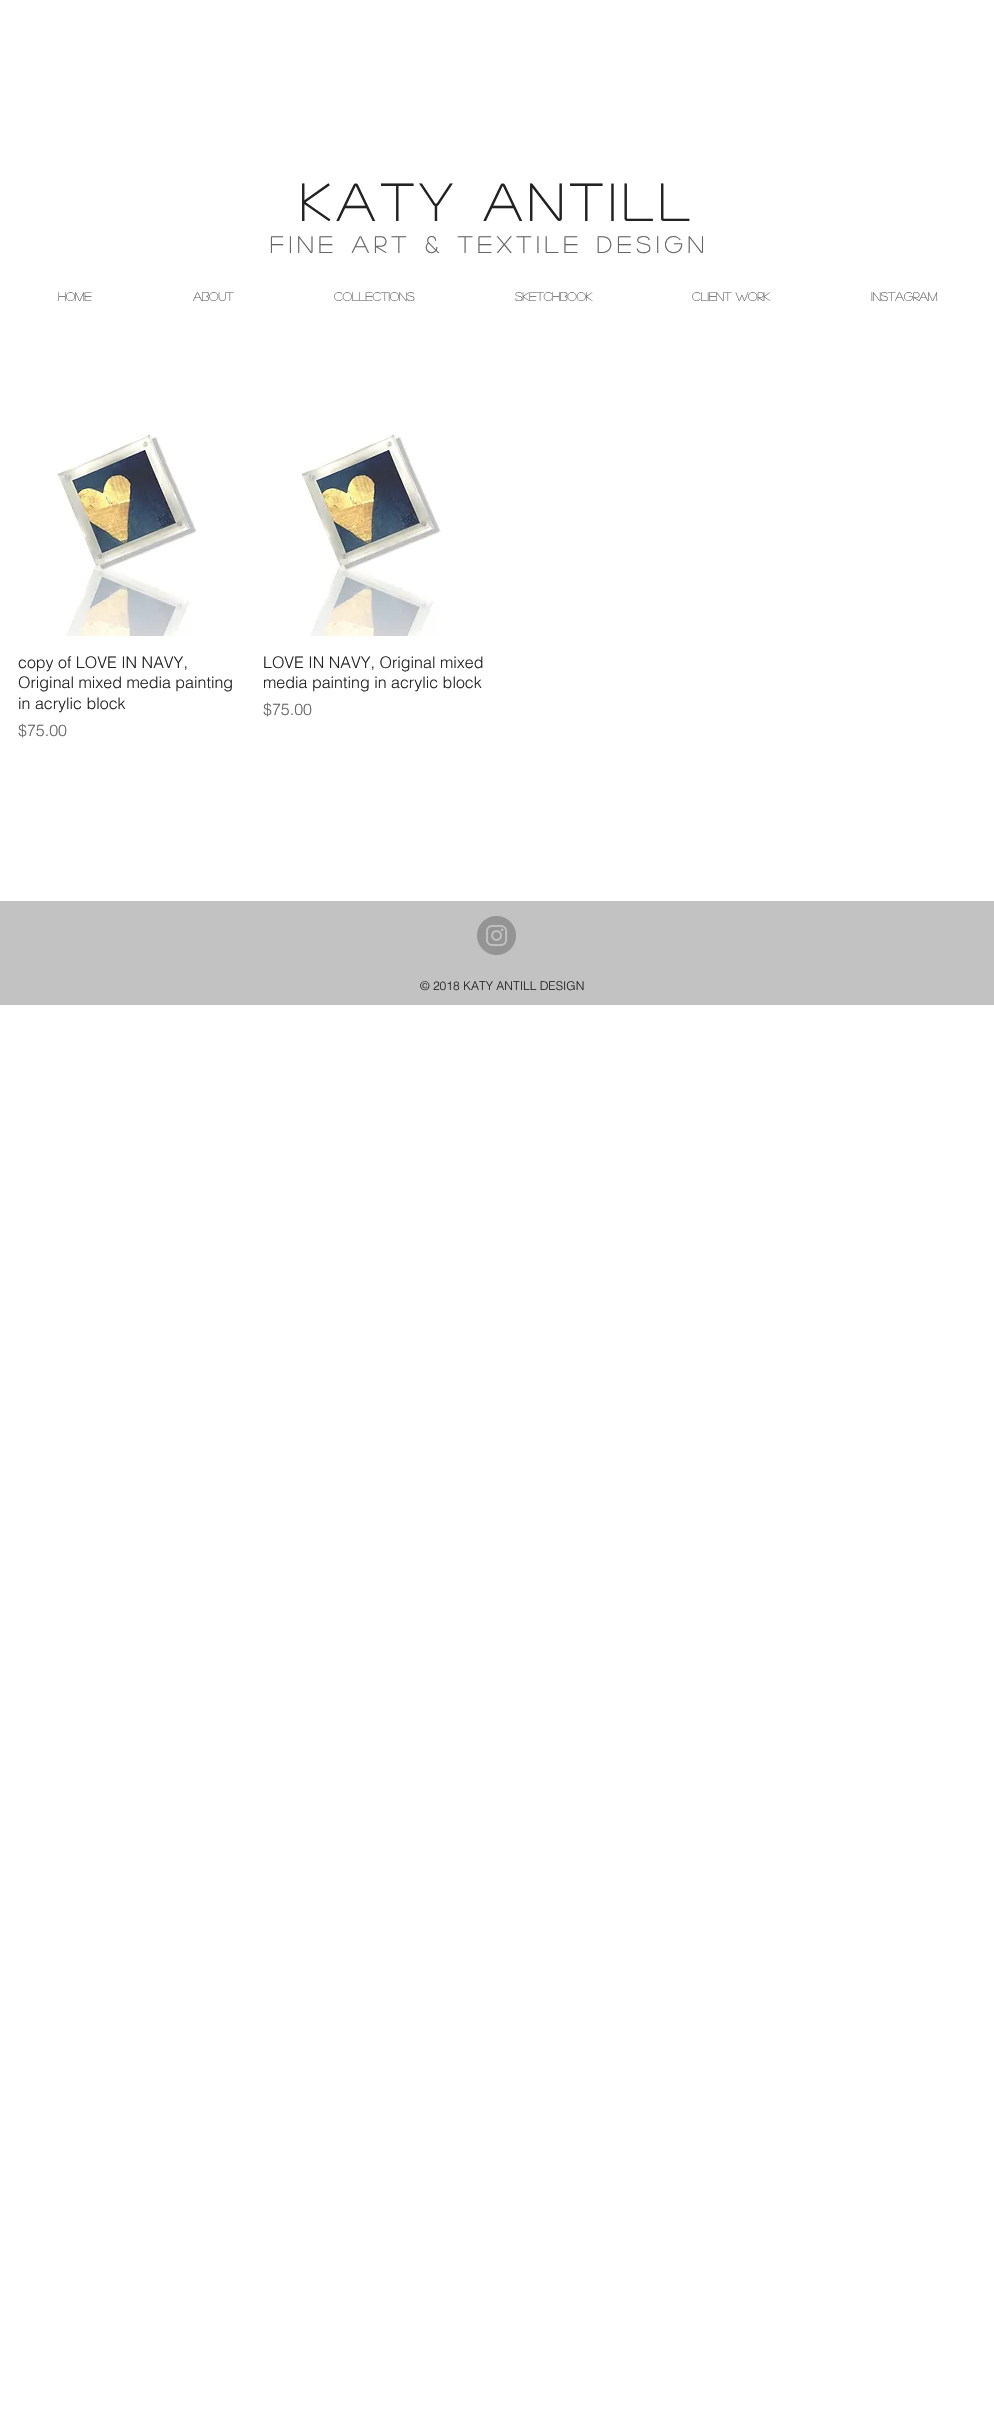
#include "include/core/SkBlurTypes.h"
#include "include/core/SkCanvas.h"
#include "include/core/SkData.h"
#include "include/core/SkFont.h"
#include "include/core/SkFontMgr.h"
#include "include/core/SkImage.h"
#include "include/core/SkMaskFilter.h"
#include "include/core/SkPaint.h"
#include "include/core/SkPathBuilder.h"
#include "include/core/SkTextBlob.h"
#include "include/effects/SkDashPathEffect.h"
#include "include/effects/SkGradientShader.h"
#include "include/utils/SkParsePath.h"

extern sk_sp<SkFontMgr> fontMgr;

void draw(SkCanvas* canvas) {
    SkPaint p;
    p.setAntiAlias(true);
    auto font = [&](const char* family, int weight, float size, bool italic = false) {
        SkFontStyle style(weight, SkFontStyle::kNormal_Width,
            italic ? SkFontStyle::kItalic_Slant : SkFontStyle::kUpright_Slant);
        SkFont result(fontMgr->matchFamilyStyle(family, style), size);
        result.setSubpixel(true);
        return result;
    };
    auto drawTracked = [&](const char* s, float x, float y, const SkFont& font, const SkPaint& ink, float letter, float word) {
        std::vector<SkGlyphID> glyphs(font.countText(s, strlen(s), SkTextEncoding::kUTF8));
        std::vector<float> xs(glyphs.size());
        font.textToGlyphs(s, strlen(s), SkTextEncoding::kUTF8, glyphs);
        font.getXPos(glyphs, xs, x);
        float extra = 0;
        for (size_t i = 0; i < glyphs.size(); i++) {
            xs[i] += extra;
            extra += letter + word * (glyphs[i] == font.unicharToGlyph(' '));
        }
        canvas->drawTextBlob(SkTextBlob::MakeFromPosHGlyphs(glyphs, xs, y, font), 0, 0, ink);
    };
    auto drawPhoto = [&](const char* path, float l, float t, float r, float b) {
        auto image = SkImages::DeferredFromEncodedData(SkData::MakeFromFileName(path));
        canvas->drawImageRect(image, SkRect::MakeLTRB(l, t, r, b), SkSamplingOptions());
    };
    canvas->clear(0xFFFFFFFF);
    auto font1 = font("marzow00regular", 700, 51);
    p.setColor(0xFF222222);
    drawTracked("KATY ANTILL", 300, 221, font1, p, 7.6f, 0);
    auto font2 = font("marzow00regular", 700, 23);
    p.setColor(0xFF656565);
    drawTracked("Fine art & Textile design", 270, 253, font2, p, 5.75f, 0);
    auto font3 = font("marzow00regular", 700, 12);
    {
        const struct { const char* s; float x, y; } items[] = {
            {"HOME", 58, 301},
            {"ABOUT", 193, 301},
            {"COLLECTIONS", 334, 301},
            {"SKETCHBOOK", 515, 301},
            {"CLIENT WORK", 692, 301},
            {"INSTAGRAM", 871, 301},
        };
        for (auto [s, x, y] : items) {
            canvas->drawString(s, x, y, font3, p);
        }
    }
    drawPhoto("media/1.png", 58, 435, 197, 636);
    auto font4 = font("helvetica", 300, 16);
    p.setColor(0xFF222222);
    {
        const struct { const char* s; float x, y; } items[] = {
            {"copy of LOVE IN NAVY,", 18, 668},
            {"Original mixed media painting", 18, 688},
            {"in acrylic block", 18, 709},
        };
        for (auto [s, x, y] : items) {
            canvas->drawString(s, x, y, font4, p);
        }
    }
    p.setColor(0xFF656565);
    canvas->drawString("$75.00", 18, 736, font4, p);
    drawPhoto("media/1.png", 302, 435, 441, 636);
    p.setColor(0xFF222222);
    canvas->drawString("LOVE IN NAVY, Original mixed", 263, 668, font4, p);
    canvas->drawString("media painting in acrylic block", 263, 688, font4, p);
    p.setColor(0xFF656565);
    canvas->drawString("$75.00", 263, 715, font4, p);
    p.setColor(0xFFC2C2C2);
    canvas->drawRect(SkRect::MakeLTRB(0, 901, 994, 1005), p);
    drawPhoto("media/2.png", 477, 916, 516, 955);
    auto font5 = font("helvetica", 300, 12);
    p.setColor(0xFF222222);
    canvas->drawString("© 2018 KATY ANTILL DESIGN", 420, 990, font5, p);
}
